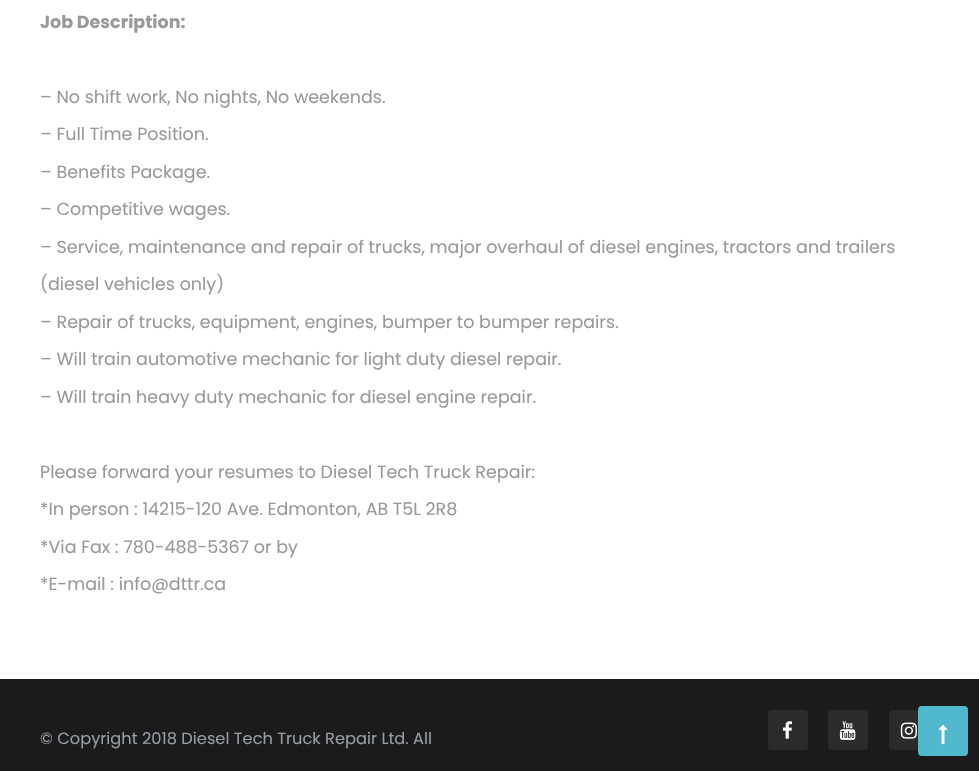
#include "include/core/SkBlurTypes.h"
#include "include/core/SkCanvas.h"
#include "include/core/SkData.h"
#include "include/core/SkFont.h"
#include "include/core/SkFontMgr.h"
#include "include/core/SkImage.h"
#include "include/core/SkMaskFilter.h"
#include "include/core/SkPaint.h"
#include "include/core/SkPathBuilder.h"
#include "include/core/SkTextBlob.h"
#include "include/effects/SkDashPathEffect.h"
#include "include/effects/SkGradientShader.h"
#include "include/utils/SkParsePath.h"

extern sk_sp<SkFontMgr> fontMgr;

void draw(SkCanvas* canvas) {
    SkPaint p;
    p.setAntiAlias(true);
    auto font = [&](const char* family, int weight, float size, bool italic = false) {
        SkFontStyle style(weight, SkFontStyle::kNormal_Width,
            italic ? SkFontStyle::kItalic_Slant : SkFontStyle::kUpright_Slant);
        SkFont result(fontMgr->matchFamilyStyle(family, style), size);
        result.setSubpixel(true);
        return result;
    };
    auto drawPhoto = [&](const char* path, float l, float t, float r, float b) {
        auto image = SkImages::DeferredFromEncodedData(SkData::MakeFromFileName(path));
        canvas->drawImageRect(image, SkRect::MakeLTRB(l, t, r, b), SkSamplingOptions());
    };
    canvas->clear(0xFFFFFFFF);
    auto font1 = font("Poppins", 700, 17.5f);
    p.setColor(0xFF999999);
    canvas->drawString("Job Description:", 40, 28, font1, p);
    auto font2 = font("Poppins", 400, 17.5f);
    {
        const struct { const char* s; float x, y; } items[] = {
            {"– No shift work, No nights, No weekends.", 40, 103},
            {"– Full Time Position.", 40, 140},
            {"– Benefits Package.", 40, 178},
            {"– Competitive wages.", 40, 215},
            {"– Service, maintenance and repair of trucks, major overhaul of diesel engines, tractors and trailers", 40, 253},
            {"(diesel vehicles only)", 40, 290},
            {"– Repair of trucks, equipment, engines, bumper to bumper repairs.", 40, 328},
            {"– Will train automotive mechanic for light duty diesel repair.", 40, 365},
            {"– Will train heavy duty mechanic for diesel engine repair.", 40, 403},
            {"Please forward your resumes to Diesel Tech Truck Repair:", 40, 478},
            {"*In person : 14215-120 Ave. Edmonton, AB T5L 2R8", 40, 515},
            {"*Via Fax : 780-488-5367 or by", 40, 553},
            {"*E-mail : info@dttr.ca", 40, 590},
        };
        for (auto [s, x, y] : items) {
            canvas->drawString(s, x, y, font2, p);
        }
    }
    p.setColor(0xFF1B1B1B);
    canvas->drawRect(SkRect::MakeLTRB(0, 679, 979, 771), p);
    auto font3 = font("Poppins", 400, 16.25f);
    p.setColor(0xFF969EA7);
    canvas->drawString("© Copyright 2018 Diesel Tech Truck Repair Ltd. All", 40, 744, font3, p);
    p.setColor(0xFF2B2B2B);
    canvas->drawRoundRect(SkRect::MakeLTRB(768, 710, 808, 750), 4, 4, p);
    drawPhoto("media/1.png", 782, 721, 792, 739);
    canvas->drawRoundRect(SkRect::MakeLTRB(828, 710, 868, 750), 4, 4, p);
    drawPhoto("media/2.png", 839, 721, 856, 740);
    canvas->drawRoundRect(SkRect::MakeLTRB(889, 710, 929, 750), 4, 4, p);
    drawPhoto("media/3.png", 900, 722, 917, 739);
    p.setColor(0xFF50B9CE);
    canvas->drawRoundRect(SkRect::MakeLTRB(919.5f, 707.5f, 966.5f, 754.5f), 2.5f, 2.5f, p);
    p.setStyle(SkPaint::kStroke_Style);
    p.setStrokeWidth(3);
    canvas->drawRoundRect(SkRect::MakeLTRB(919.5f, 707.5f, 966.5f, 754.5f), 2.5f, 2.5f, p);
    drawPhoto("media/4.png", 938, 724, 948, 745);
}
